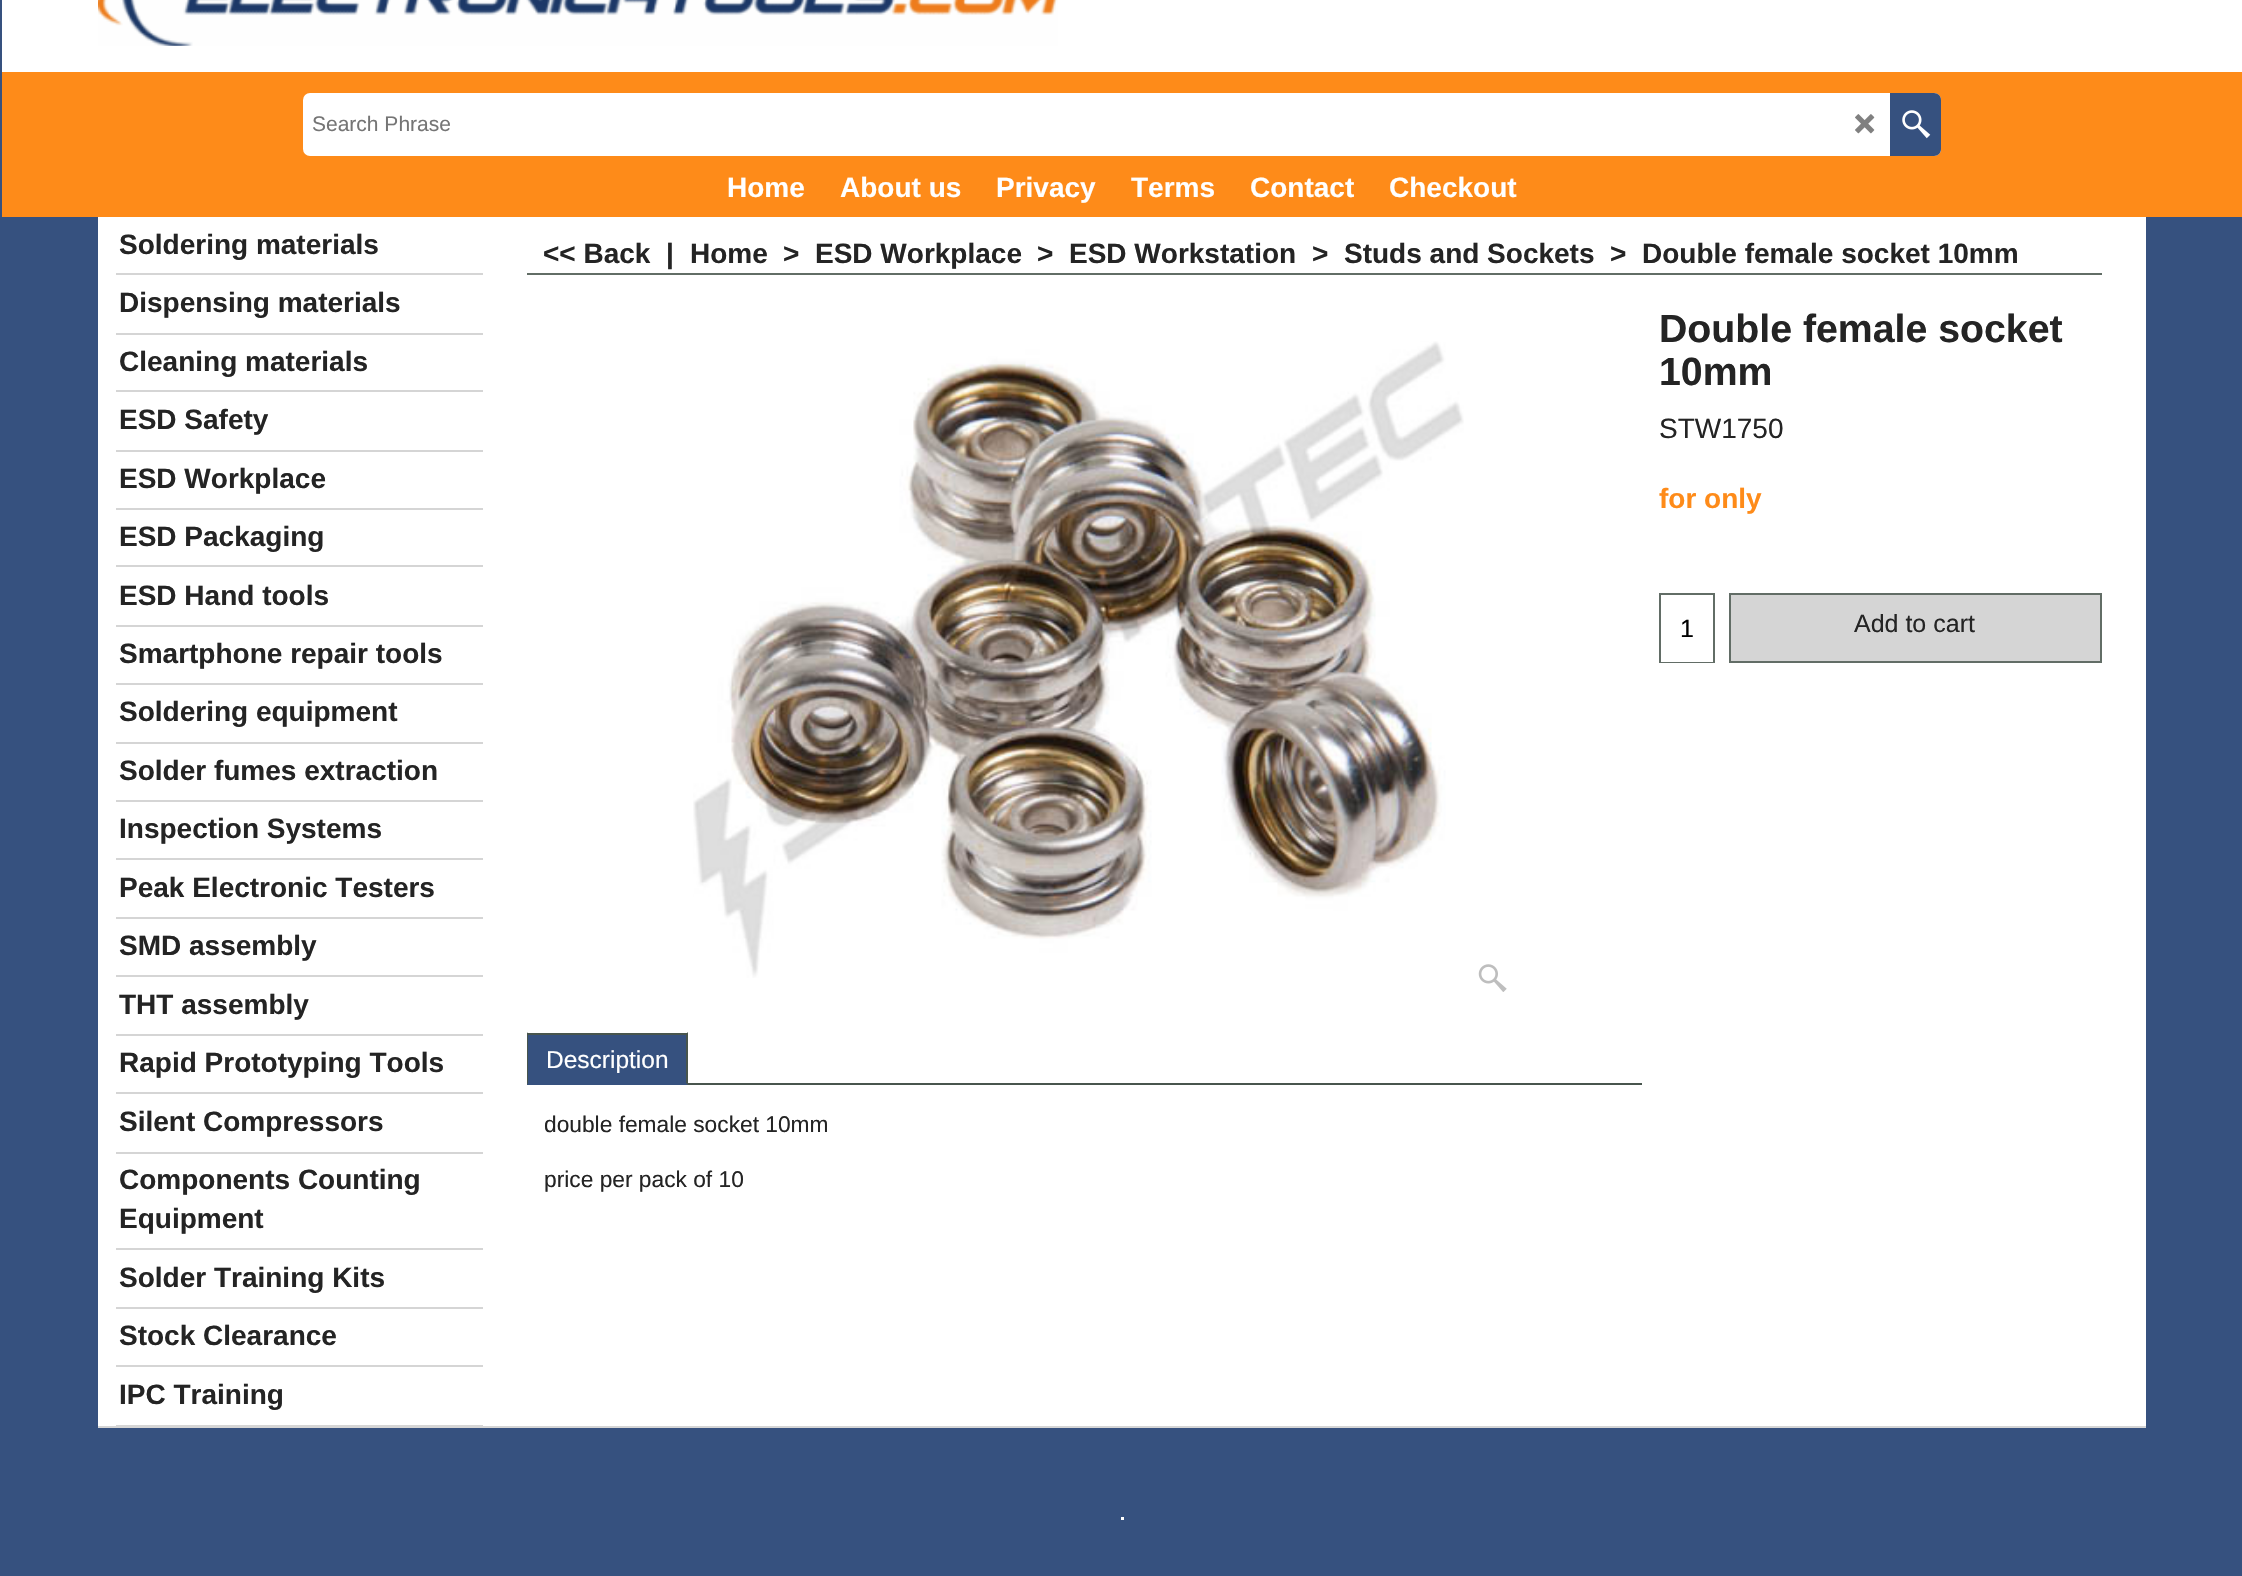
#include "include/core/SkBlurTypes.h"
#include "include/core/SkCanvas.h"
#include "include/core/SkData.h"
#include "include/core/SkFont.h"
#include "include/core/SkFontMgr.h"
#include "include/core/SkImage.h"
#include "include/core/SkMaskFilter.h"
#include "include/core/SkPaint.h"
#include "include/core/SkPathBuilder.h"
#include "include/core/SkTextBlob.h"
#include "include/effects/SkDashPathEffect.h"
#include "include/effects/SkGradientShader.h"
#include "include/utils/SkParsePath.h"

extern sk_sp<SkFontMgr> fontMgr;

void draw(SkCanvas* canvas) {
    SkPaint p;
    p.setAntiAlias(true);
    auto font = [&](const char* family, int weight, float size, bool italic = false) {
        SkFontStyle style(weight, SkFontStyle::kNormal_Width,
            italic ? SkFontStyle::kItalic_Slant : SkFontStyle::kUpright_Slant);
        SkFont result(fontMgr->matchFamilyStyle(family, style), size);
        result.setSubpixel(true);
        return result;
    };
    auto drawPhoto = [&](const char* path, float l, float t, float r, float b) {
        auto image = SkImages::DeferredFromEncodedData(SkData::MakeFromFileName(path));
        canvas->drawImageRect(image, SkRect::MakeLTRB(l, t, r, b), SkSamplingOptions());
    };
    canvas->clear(0xFF36517F);
    p.setColor(0xFFFFFFFF);
    canvas->drawRect(SkRect::MakeLTRB(2, 0, 2242, 72), p);
    drawPhoto("media/1.png", 98, 0, 1058, 46);
    p.setColor(0xFFFE8B19);
    canvas->drawRect(SkRect::MakeLTRB(2, 72, 2242, 217), p);
    p.setColor(0xFFFFFFFF);
    canvas->drawRoundRect(SkRect::MakeLTRB(303, 93, 1941, 156), 7, 7, p);
    auto font1 = font("Liberation Sans", 400, 21);
    p.setColor(0xFF757575);
    canvas->drawString("Search Phrase", 312, 131, font1, p);
    drawPhoto("media/2.png", 1855, 114, 1875, 134);
    p.setColor(0xFF36517F);
    canvas->drawPath(SkPathBuilder().moveTo(1890, 93).lineTo(1934, 93).cubicTo(1938, 93, 1941, 96, 1941, 100).lineTo(1941, 149).cubicTo(1941, 153, 1938, 156, 1934, 156).lineTo(1890, 156).close().detach(), p);
    drawPhoto("media/3.png", 1902, 110, 1931, 139);
    auto font2 = font("Liberation Sans", 700, 28);
    p.setColor(0xFFFFFFFF);
    {
        const struct { const char* s; float x, y; } items[] = {
            {"Home", 727, 197},
            {"About us", 840, 197},
            {"Privacy", 996, 197},
            {"Terms", 1131, 197},
            {"Contact", 1250, 197},
            {"Checkout", 1389, 197},
        };
        for (auto [s, x, y] : items) {
            canvas->drawString(s, x, y, font2, p);
        }
    }
    canvas->drawRect(SkRect::MakeLTRB(98, 217, 2146, 1426), p);
    p.setColor(0xFFD5D5D5);
    canvas->drawRect(SkRect::MakeLTRB(116, 273, 483, 275), p);
    p.setColor(0xFF242424);
    canvas->drawString("Soldering materials", 119, 254, font2, p);
    p.setColor(0xFFD5D5D5);
    canvas->drawRect(SkRect::MakeLTRB(116, 333, 483, 335), p);
    p.setColor(0xFF242424);
    canvas->drawString("Dispensing materials", 119, 312, font2, p);
    p.setColor(0xFFD5D5D5);
    canvas->drawRect(SkRect::MakeLTRB(116, 390, 483, 392), p);
    p.setColor(0xFF242424);
    canvas->drawString("Cleaning materials", 119, 371, font2, p);
    p.setColor(0xFFD5D5D5);
    canvas->drawRect(SkRect::MakeLTRB(116, 450, 483, 452), p);
    p.setColor(0xFF242424);
    canvas->drawString("ESD Safety", 119, 429, font2, p);
    p.setColor(0xFFD5D5D5);
    canvas->drawRect(SkRect::MakeLTRB(116, 508, 483, 510), p);
    p.setColor(0xFF242424);
    canvas->drawString("ESD Workplace", 119, 488, font2, p);
    p.setColor(0xFFD5D5D5);
    canvas->drawRect(SkRect::MakeLTRB(116, 565, 483, 567), p);
    p.setColor(0xFF242424);
    canvas->drawString("ESD Packaging", 119, 546, font2, p);
    p.setColor(0xFFD5D5D5);
    canvas->drawRect(SkRect::MakeLTRB(116, 625, 483, 627), p);
    p.setColor(0xFF242424);
    canvas->drawString("ESD Hand tools", 119, 605, font2, p);
    p.setColor(0xFFD5D5D5);
    canvas->drawRect(SkRect::MakeLTRB(116, 683, 483, 685), p);
    p.setColor(0xFF242424);
    canvas->drawString("Smartphone repair tools", 119, 663, font2, p);
    p.setColor(0xFFD5D5D5);
    canvas->drawRect(SkRect::MakeLTRB(116, 742, 483, 744), p);
    p.setColor(0xFF242424);
    canvas->drawString("Soldering equipment", 119, 721, font2, p);
    p.setColor(0xFFD5D5D5);
    canvas->drawRect(SkRect::MakeLTRB(116, 800, 483, 802), p);
    p.setColor(0xFF242424);
    canvas->drawString("Solder fumes extraction", 119, 780, font2, p);
    p.setColor(0xFFD5D5D5);
    canvas->drawRect(SkRect::MakeLTRB(116, 858, 483, 860), p);
    p.setColor(0xFF242424);
    canvas->drawString("Inspection Systems", 119, 838, font2, p);
    p.setColor(0xFFD5D5D5);
    canvas->drawRect(SkRect::MakeLTRB(116, 917, 483, 919), p);
    p.setColor(0xFF242424);
    canvas->drawString("Peak Electronic Testers", 119, 897, font2, p);
    p.setColor(0xFFD5D5D5);
    canvas->drawRect(SkRect::MakeLTRB(116, 975, 483, 977), p);
    p.setColor(0xFF242424);
    canvas->drawString("SMD assembly", 119, 955, font2, p);
    p.setColor(0xFFD5D5D5);
    canvas->drawRect(SkRect::MakeLTRB(116, 1034, 483, 1036), p);
    p.setColor(0xFF242424);
    canvas->drawString("THT assembly", 119, 1014, font2, p);
    p.setColor(0xFFD5D5D5);
    canvas->drawRect(SkRect::MakeLTRB(116, 1092, 483, 1094), p);
    p.setColor(0xFF242424);
    canvas->drawString("Rapid Prototyping Tools", 119, 1072, font2, p);
    p.setColor(0xFFD5D5D5);
    canvas->drawRect(SkRect::MakeLTRB(116, 1152, 483, 1154), p);
    p.setColor(0xFF242424);
    canvas->drawString("Silent Compressors", 119, 1131, font2, p);
    p.setColor(0xFFD5D5D5);
    canvas->drawRect(SkRect::MakeLTRB(116, 1248, 483, 1250), p);
    p.setColor(0xFF242424);
    canvas->drawString("Components Counting", 119, 1189, font2, p);
    canvas->drawString("Equipment", 119, 1228, font2, p);
    p.setColor(0xFFD5D5D5);
    canvas->drawRect(SkRect::MakeLTRB(116, 1307, 483, 1309), p);
    p.setColor(0xFF242424);
    canvas->drawString("Solder Training Kits", 119, 1287, font2, p);
    p.setColor(0xFFD5D5D5);
    canvas->drawRect(SkRect::MakeLTRB(116, 1365, 483, 1367), p);
    p.setColor(0xFF242424);
    canvas->drawString("Stock Clearance", 119, 1345, font2, p);
    p.setColor(0xFFD5D5D5);
    canvas->drawRect(SkRect::MakeLTRB(116, 1425, 483, 1426), p);
    p.setColor(0xFF242424);
    canvas->drawString("IPC Training", 119, 1404, font2, p);
    p.setColor(0xFF626D66);
    canvas->drawRect(SkRect::MakeLTRB(527, 273, 2102, 275), p);
    p.setColor(0xFF242424);
    {
        const struct { const char* s; float x, y; } items[] = {
            {"<< Back", 543, 263},
            {"|", 666, 263},
            {"Home", 690, 263},
            {">", 783, 263},
            {"ESD Workplace", 815, 263},
            {">", 1037, 263},
            {"ESD Workstation", 1069, 263},
            {">", 1312, 263},
            {"Studs and Sockets", 1344, 263},
            {">", 1610, 263},
            {"Double female socket 10mm", 1642, 263},
        };
        for (auto [s, x, y] : items) {
            canvas->drawString(s, x, y, font2, p);
        }
    }
    drawPhoto("media/4.png", 693, 341, 1464, 978);
    drawPhoto("media/5.png", 1478, 964, 1507, 992);
    auto font3 = font("Liberation Sans", 700, 39.25f);
    canvas->drawString("Double female socket", 1659, 342, font3, p);
    canvas->drawString("10mm", 1659, 385, font3, p);
    auto font4 = font("Liberation Sans", 400, 28);
    canvas->drawString("STW1750", 1659, 438, font4, p);
    p.setColor(0xFFFE8B19);
    canvas->drawString("for only", 1659, 508, font2, p);
    p.setStyle(SkPaint::kStroke_Style);
    p.setStrokeWidth(2);
    p.setColor(0xFF626D66);
    canvas->drawRect(SkRect::MakeLTRB(1660, 594, 1714, 662), p);
    p.setStyle(SkPaint::kFill_Style);
    p.setColor(0xFFFFFFFF);
    canvas->drawRect(SkRect::MakeLTRB(1661, 661, 1713, 662), p);
    auto font5 = font("Liberation Sans", 400, 25);
    p.setColor(0xFF000000);
    canvas->drawString("1", 1680, 637, font5, p);
    p.setColor(0xFFD5D5D5);
    canvas->drawRect(SkRect::MakeLTRB(1730, 594, 2101, 662), p);
    p.setStyle(SkPaint::kStroke_Style);
    p.setColor(0xFF626D66);
    canvas->drawRect(SkRect::MakeLTRB(1730, 594, 2101, 662), p);
    p.setStyle(SkPaint::kFill_Style);
    p.setColor(0xFF242424);
    canvas->drawString("Add to cart", 1854, 632, font5, p);
    p.setColor(0xFF36517F);
    canvas->drawRect(SkRect::MakeLTRB(527, 1035, 688, 1085), p);
    p.setColor(0xFF48554D);
    canvas->drawRect(SkRect::MakeLTRB(527, 1033, 688, 1035), p);
    canvas->drawPath(SkPathBuilder().moveTo(688, 1032).lineTo(688, 1085).lineTo(686, 1083).lineTo(686, 1034).close().detach(), p);
    canvas->drawPath(SkPathBuilder().moveTo(527, 1085).lineTo(527, 1032).lineTo(528, 1034).lineTo(528, 1083).close().detach(), p);
    auto font6 = font("Liberation Sans", 400, 24.5f);
    p.setColor(0xFFFFFFFF);
    canvas->drawString("Description", 546, 1068, font6, p);
    p.setColor(0xFF48554D);
    canvas->drawRect(SkRect::MakeLTRB(688, 1083, 1642, 1085), p);
    auto font7 = font("Liberation Sans", 400, 22.75f);
    p.setColor(0xFF242424);
    canvas->drawString("double female socket 10mm", 544, 1132, font7, p);
    canvas->drawString("price per pack of 10", 544, 1187, font7, p);
    p.setColor(0xFFD5D5D5);
    canvas->drawRect(SkRect::MakeLTRB(98, 1426, 2146, 1428), p);
    p.setColor(0xFFFFFFFF);
    canvas->drawRect(SkRect::MakeLTRB(1121, 1517, 1124, 1520), p);
}
